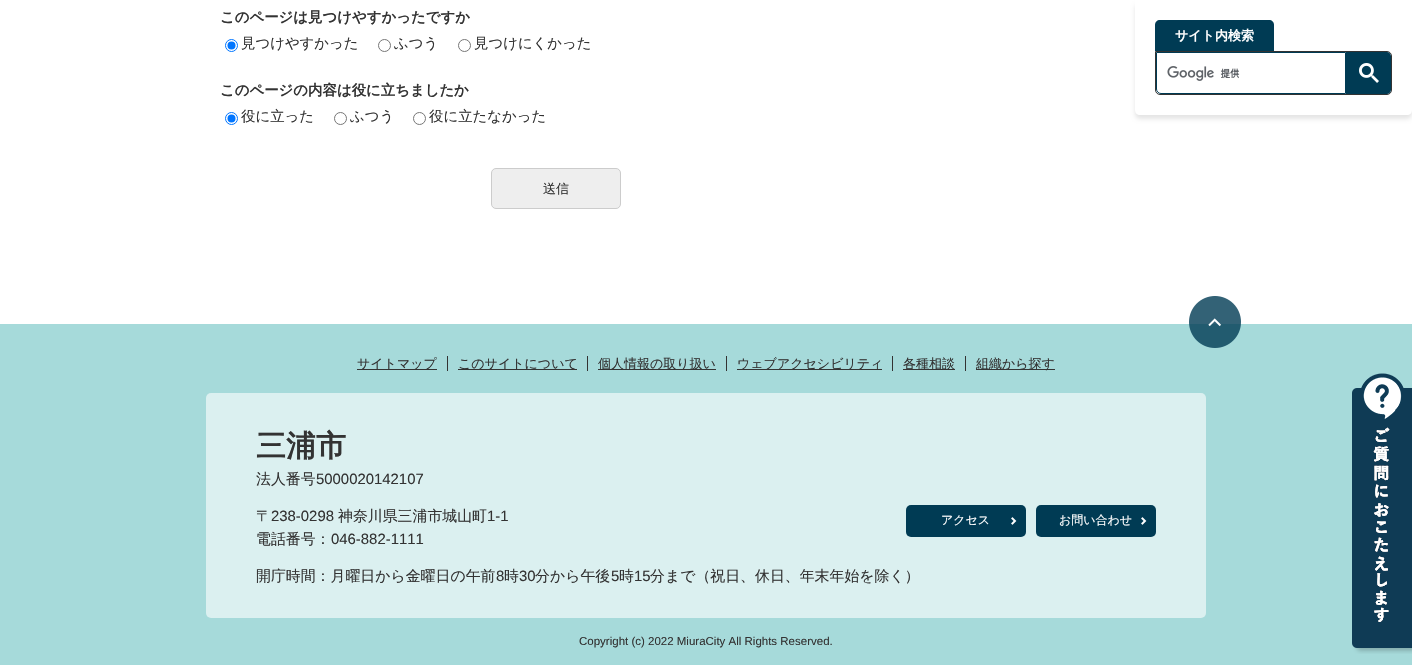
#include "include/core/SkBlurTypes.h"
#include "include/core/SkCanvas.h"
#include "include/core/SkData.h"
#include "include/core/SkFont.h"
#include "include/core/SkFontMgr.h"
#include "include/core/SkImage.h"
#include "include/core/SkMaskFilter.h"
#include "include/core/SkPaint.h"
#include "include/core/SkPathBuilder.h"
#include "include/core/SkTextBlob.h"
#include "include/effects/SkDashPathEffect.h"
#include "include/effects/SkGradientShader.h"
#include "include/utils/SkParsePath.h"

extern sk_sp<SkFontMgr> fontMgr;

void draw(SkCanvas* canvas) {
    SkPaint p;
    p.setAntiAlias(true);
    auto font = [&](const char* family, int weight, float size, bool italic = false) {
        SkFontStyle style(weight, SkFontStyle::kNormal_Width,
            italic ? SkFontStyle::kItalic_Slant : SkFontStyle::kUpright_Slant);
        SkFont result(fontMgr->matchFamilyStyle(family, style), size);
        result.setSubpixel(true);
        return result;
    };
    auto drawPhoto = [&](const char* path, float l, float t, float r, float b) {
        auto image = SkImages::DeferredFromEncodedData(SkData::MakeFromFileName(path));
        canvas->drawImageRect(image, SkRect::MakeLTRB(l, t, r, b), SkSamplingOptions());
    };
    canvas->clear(0xFFFFFFFF);
    auto font1 = font("WenQuanYi Zen Hei", 700, 14.4f);
    p.setColor(0xFF333333);
    canvas->drawString("このページは見つけやすかったですか", 220, 22, font1, p);
    p.setStyle(SkPaint::kStroke_Style);
    p.setStrokeWidth(1);
    p.setColor(0xFF0075FF);
    canvas->drawCircle(231.5f, 45.5f, 6, p);
    p.setStyle(SkPaint::kFill_Style);
    canvas->drawCircle(231.5f, 45.5f, 4, p);
    auto font2 = font("WenQuanYi Zen Hei", 500, 14.4f);
    p.setColor(0xFF333333);
    canvas->drawString("見つけやすかった", 241, 48, font2, p);
    p.setStyle(SkPaint::kStroke_Style);
    p.setColor(0xFF767676);
    canvas->drawCircle(384.5f, 45.5f, 6, p);
    p.setStyle(SkPaint::kFill_Style);
    p.setColor(0xFF333333);
    canvas->drawString("ふつう", 394, 48, font2, p);
    p.setStyle(SkPaint::kStroke_Style);
    p.setColor(0xFF767676);
    canvas->drawCircle(464.5f, 45.5f, 6, p);
    p.setStyle(SkPaint::kFill_Style);
    p.setColor(0xFF333333);
    canvas->drawString("見つけにくかった", 474, 48, font2, p);
    canvas->drawString("このページの内容は役に立ちましたか", 220, 95, font1, p);
    p.setStyle(SkPaint::kStroke_Style);
    p.setColor(0xFF0075FF);
    canvas->drawCircle(231.5f, 118.5f, 6, p);
    p.setStyle(SkPaint::kFill_Style);
    canvas->drawCircle(231.5f, 118.5f, 4, p);
    p.setColor(0xFF333333);
    canvas->drawString("役に立った", 241, 121, font2, p);
    p.setStyle(SkPaint::kStroke_Style);
    p.setColor(0xFF767676);
    canvas->drawCircle(340.5f, 118.5f, 6, p);
    p.setStyle(SkPaint::kFill_Style);
    p.setColor(0xFF333333);
    canvas->drawString("ふつう", 350, 121, font2, p);
    p.setStyle(SkPaint::kStroke_Style);
    p.setColor(0xFF767676);
    canvas->drawCircle(419.5f, 118.5f, 6, p);
    p.setStyle(SkPaint::kFill_Style);
    p.setColor(0xFF333333);
    canvas->drawString("役に立たなかった", 429, 121, font2, p);
    p.setColor(0xFFEEEEEE);
    canvas->drawRoundRect(SkRect::MakeLTRB(491.5f, 168.5f, 620.5f, 208.5f), 4.5f, 4.5f, p);
    p.setStyle(SkPaint::kStroke_Style);
    p.setColor(0xFFCCCCCC);
    canvas->drawRoundRect(SkRect::MakeLTRB(491.5f, 168.5f, 620.5f, 208.5f), 4.5f, 4.5f, p);
    auto font3 = font("WenQuanYi Zen Hei", 500, 13);
    p.setStyle(SkPaint::kFill_Style);
    p.setColor(0xFF333333);
    canvas->drawString("送信", 543, 193, font3, p);
    p.setColor(0x1A000000);
    p.setMaskFilter(SkMaskFilter::MakeBlur(kNormal_SkBlurStyle, 2));
    canvas->drawRoundRect(SkRect::MakeLTRB(1135, 4, 1412, 119), 5, 5, p);
    p.setMaskFilter(nullptr);
    p.setColor(0xFFFFFFFF);
    canvas->drawPath(SkPathBuilder().moveTo(1135, 0).lineTo(1412, 0).lineTo(1412, 110).cubicTo(1412, 113, 1410, 115, 1407, 115).lineTo(1140, 115).cubicTo(1137, 115, 1135, 113, 1135, 110).close().detach(), p);
    p.setColor(0xFF003B54);
    canvas->drawPath(SkPathBuilder().moveTo(1160, 20).lineTo(1269, 20).cubicTo(1272, 20, 1274, 22, 1274, 25).lineTo(1274, 51).lineTo(1155, 51).lineTo(1155, 25).cubicTo(1155, 22, 1157, 20, 1160, 20).close().detach(), p);
    auto font4 = font("WenQuanYi Zen Hei", 700, 13);
    p.setColor(0xFFFFFFFF);
    canvas->drawString("サイト内検索", 1175, 40, font4, p);
    p.setStyle(SkPaint::kStroke_Style);
    p.setColor(0xFF333333);
    canvas->drawPath(SkPathBuilder().moveTo(1155.5f, 51.5f).lineTo(1387, 51.5f).cubicTo(1389.5f, 51.5f, 1391.5f, 53.5f, 1391.5f, 56).lineTo(1391.5f, 90).cubicTo(1391.5f, 92.5f, 1389.5f, 94.5f, 1387, 94.5f).lineTo(1160, 94.5f).cubicTo(1157.5f, 94.5f, 1155.5f, 92.5f, 1155.5f, 90).close().detach(), p);
    p.setStyle(SkPaint::kFill_Style);
    p.setColor(0xFFFFFFFF);
    canvas->drawPath(SkPathBuilder().moveTo(1156.5f, 52.5f).lineTo(1345.5f, 52.5f).lineTo(1345.5f, 93.5f).lineTo(1161, 93.5f).cubicTo(1158.5f, 93.5f, 1156.5f, 91.5f, 1156.5f, 89).close().detach(), p);
    p.setStyle(SkPaint::kStroke_Style);
    p.setColor(0xFF003B54);
    canvas->drawPath(SkPathBuilder().moveTo(1156.5f, 52.5f).lineTo(1345.5f, 52.5f).lineTo(1345.5f, 93.5f).lineTo(1161, 93.5f).cubicTo(1158.5f, 93.5f, 1156.5f, 91.5f, 1156.5f, 89).close().detach(), p);
    drawPhoto("media/1.png", 1167, 66, 1240, 81);
    p.setStyle(SkPaint::kFill_Style);
    canvas->drawPath(SkPathBuilder().moveTo(1346, 52).lineTo(1387, 52).cubicTo(1389, 52, 1391, 54, 1391, 56).lineTo(1391, 90).cubicTo(1391, 92, 1389, 94, 1387, 94).lineTo(1346, 94).close().detach(), p);
    drawPhoto("media/2.png", 1359, 63, 1379, 83);
    p.setColor(0xFFA6DADA);
    canvas->drawRect(SkRect::MakeLTRB(0, 324, 1412, 665), p);
    drawPhoto("media/3.png", 1189, 296, 1241, 348);
    p.setColor(0xFF333333);
    canvas->drawRect(SkRect::MakeLTRB(357, 369, 437, 370), p);
    canvas->drawString("サイトマップ", 357, 368, font3, p);
    canvas->drawRect(SkRect::MakeLTRB(447, 356, 448, 371), p);
    canvas->drawRect(SkRect::MakeLTRB(458, 369, 577, 370), p);
    canvas->drawString("このサイトについて", 458, 368, font3, p);
    canvas->drawRect(SkRect::MakeLTRB(587, 356, 588, 371), p);
    canvas->drawRect(SkRect::MakeLTRB(598, 369, 716, 370), p);
    canvas->drawString("個人情報の取り扱い", 598, 368, font3, p);
    canvas->drawRect(SkRect::MakeLTRB(726, 356, 727, 371), p);
    canvas->drawRect(SkRect::MakeLTRB(737, 369, 882, 370), p);
    canvas->drawString("ウェブアクセシビリティ", 737, 368, font3, p);
    canvas->drawRect(SkRect::MakeLTRB(892, 356, 893, 371), p);
    canvas->drawRect(SkRect::MakeLTRB(903, 369, 955, 370), p);
    canvas->drawString("各種相談", 903, 368, font3, p);
    canvas->drawRect(SkRect::MakeLTRB(965, 356, 966, 371), p);
    canvas->drawRect(SkRect::MakeLTRB(976, 369, 1055, 370), p);
    canvas->drawString("組織から探す", 976, 368, font3, p);
    p.setColor(0xFFDBF0F0);
    canvas->drawRoundRect(SkRect::MakeLTRB(206, 393, 1206, 618), 5, 5, p);
    auto font5 = font("WenQuanYi Zen Hei", 700, 30);
    p.setColor(0xFF333333);
    canvas->drawString("三浦市", 256, 456, font5, p);
    auto font6 = font("WenQuanYi Zen Hei", 500, 14.9f);
    canvas->drawString("法人番号", 256, 484, font6, p);
    auto font7 = font("Liberation Sans", 400, 14.9f);
    canvas->drawString("5000020142107", 316, 484, font7, p);
    canvas->drawString("〒", 256, 521, font6, p);
    canvas->drawString("238-0298", 271, 521, font7, p);
    canvas->drawString("神奈川県三浦市城山町", 338, 521, font6, p);
    canvas->drawString("1-1", 487, 521, font7, p);
    canvas->drawString("電話番号：", 256, 544, font6, p);
    canvas->drawString("046-882-1111", 331, 544, font7, p);
    p.setColor(0xFF003B54);
    canvas->drawRoundRect(SkRect::MakeLTRB(906, 505, 1026, 537), 5, 5, p);
    drawPhoto("media/4.png", 1011, 517, 1017, 525);
    auto font8 = font("WenQuanYi Zen Hei", 500, 12);
    p.setColor(0xFFFFFFFF);
    canvas->drawString("アクセス", 941, 524, font8, p);
    p.setColor(0xFF003B54);
    canvas->drawRoundRect(SkRect::MakeLTRB(1036, 505, 1156, 537), 5, 5, p);
    drawPhoto("media/4.png", 1141, 517, 1147, 525);
    p.setColor(0xFFFFFFFF);
    canvas->drawString("お問い合わせ", 1059, 524, font8, p);
    p.setColor(0xFF333333);
    canvas->drawString("開庁時間：月曜日から金曜日の午前", 256, 581, font6, p);
    canvas->drawString("8", 496, 581, font7, p);
    canvas->drawString("時", 504, 581, font6, p);
    canvas->drawString("30", 519, 581, font7, p);
    canvas->drawString("分から午後", 535, 581, font6, p);
    canvas->drawString("5", 611, 581, font7, p);
    canvas->drawString("時", 619, 581, font6, p);
    canvas->drawString("15", 634, 581, font7, p);
    canvas->drawString("分まで（祝日、休日、年末年始を除く）", 650, 581, font6, p);
    auto font9 = font("Liberation Sans", 400, 11.5f);
    canvas->drawString("Copyright (c) 2022 MiuraCity All Rights Reserved.", 579, 645, font9, p);
    drawPhoto("media/5.png", 1352, 373, 1412, 654);
}
